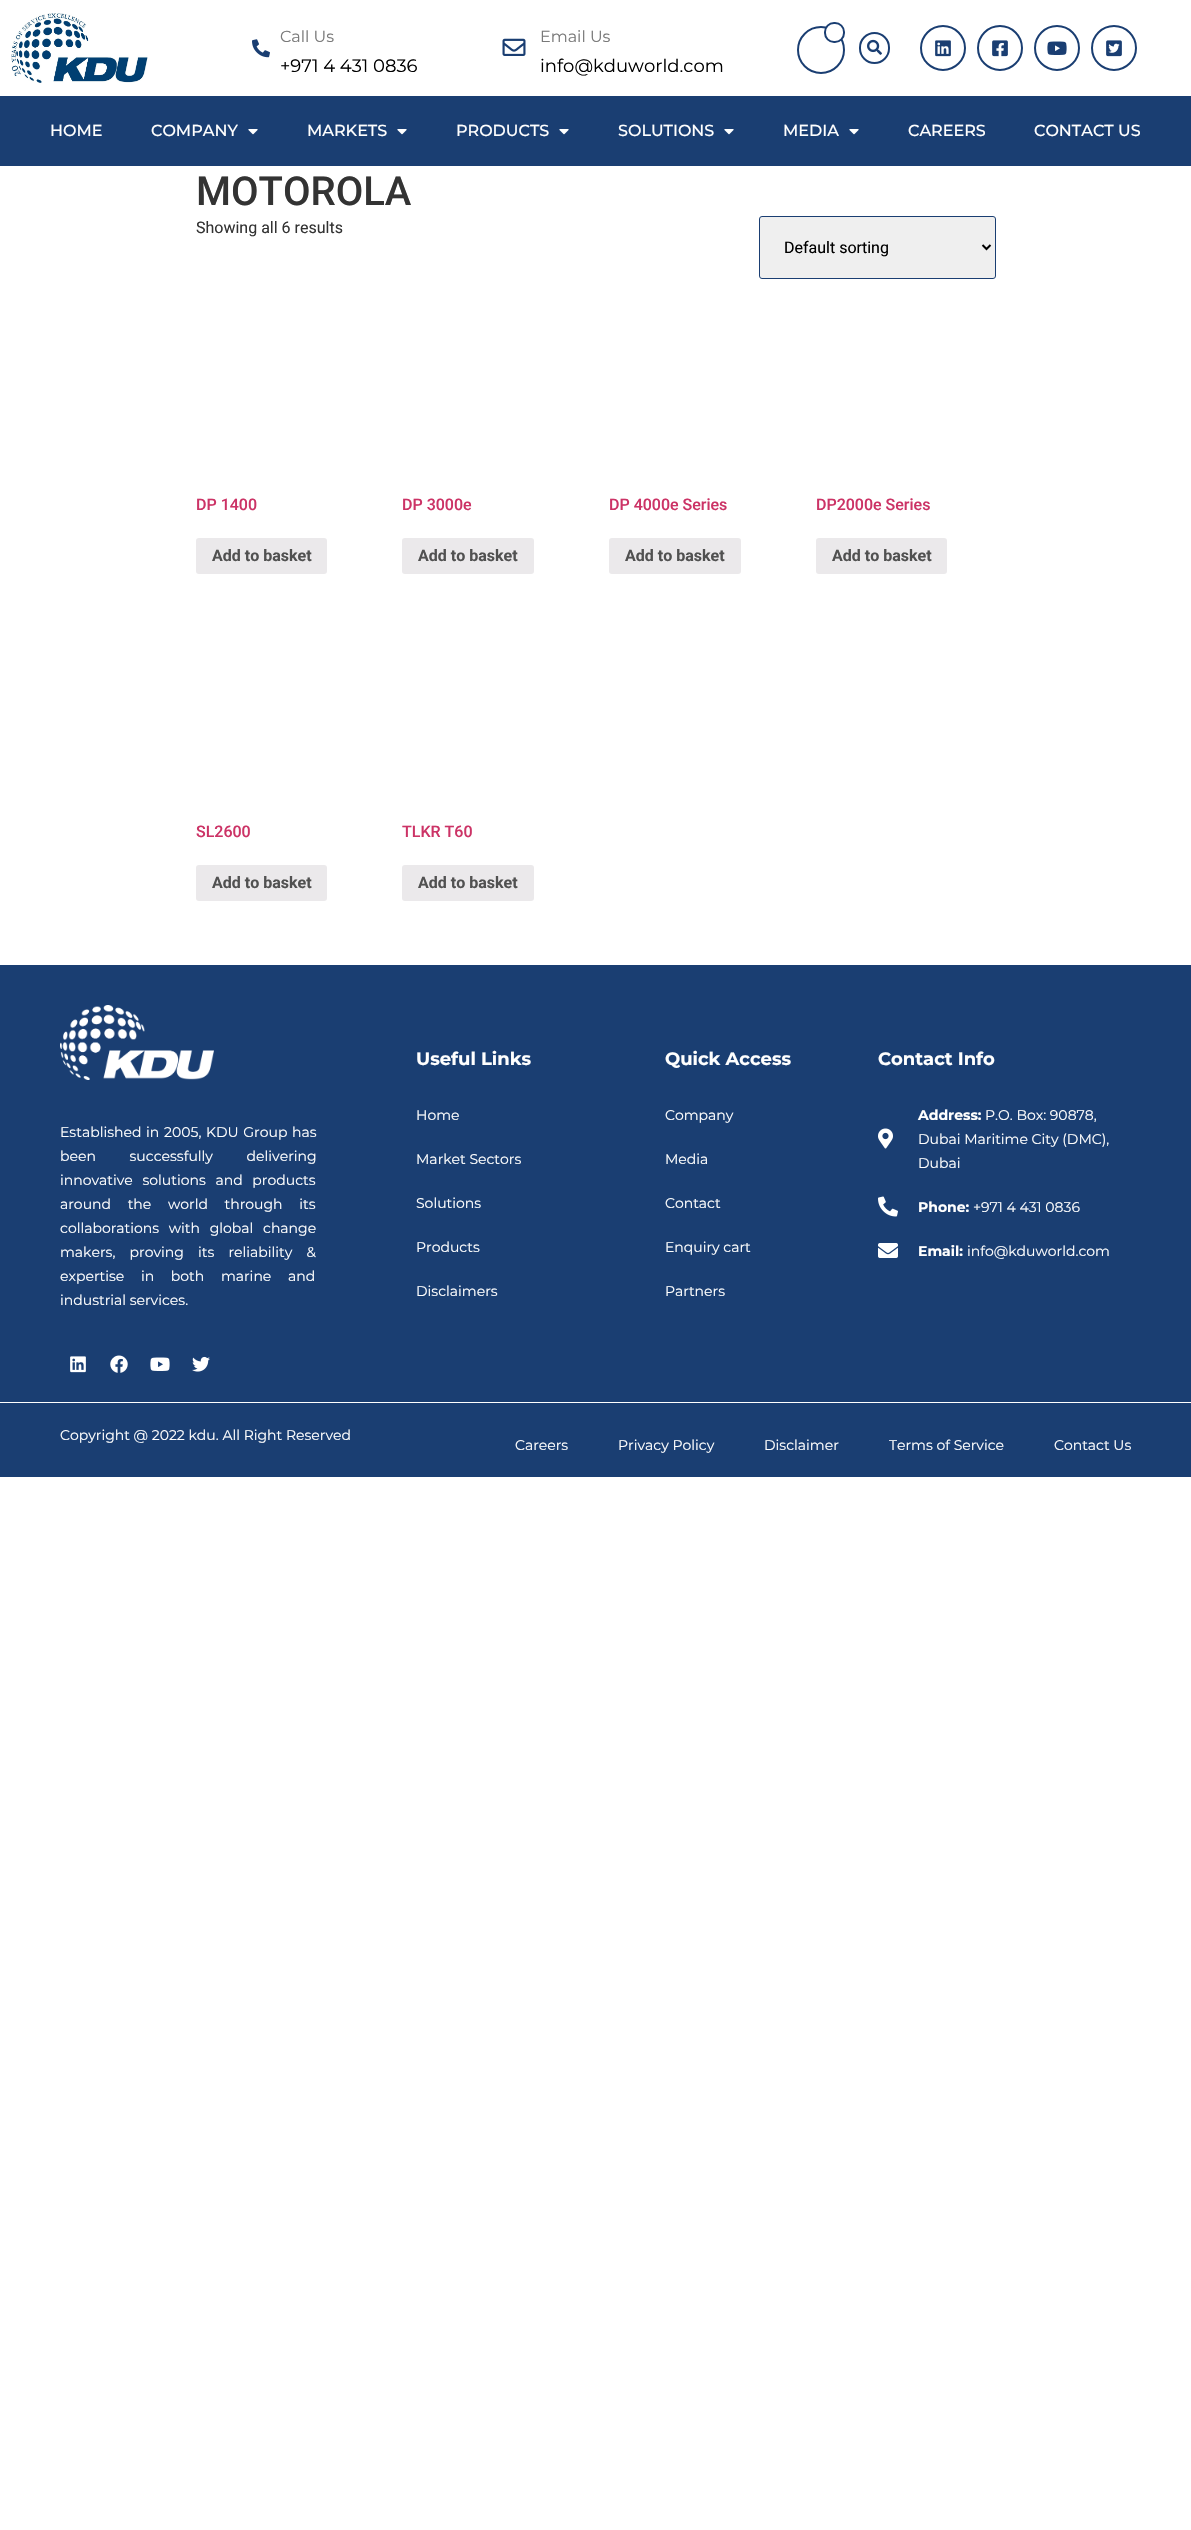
#include "include/core/SkBlurTypes.h"
#include "include/core/SkCanvas.h"
#include "include/core/SkData.h"
#include "include/core/SkFont.h"
#include "include/core/SkFontMgr.h"
#include "include/core/SkImage.h"
#include "include/core/SkMaskFilter.h"
#include "include/core/SkPaint.h"
#include "include/core/SkPathBuilder.h"
#include "include/core/SkTextBlob.h"
#include "include/effects/SkDashPathEffect.h"
#include "include/effects/SkGradientShader.h"
#include "include/utils/SkParsePath.h"

extern sk_sp<SkFontMgr> fontMgr;

void draw(SkCanvas* canvas) {
    SkPaint p;
    p.setAntiAlias(true);
    auto font = [&](const char* family, int weight, float size, bool italic = false) {
        SkFontStyle style(weight, SkFontStyle::kNormal_Width,
            italic ? SkFontStyle::kItalic_Slant : SkFontStyle::kUpright_Slant);
        SkFont result(fontMgr->matchFamilyStyle(family, style), size);
        result.setSubpixel(true);
        return result;
    };
    auto drawTracked = [&](const char* s, float x, float y, const SkFont& font, const SkPaint& ink, float letter, float word) {
        std::vector<SkGlyphID> glyphs(font.countText(s, strlen(s), SkTextEncoding::kUTF8));
        std::vector<float> xs(glyphs.size());
        font.textToGlyphs(s, strlen(s), SkTextEncoding::kUTF8, glyphs);
        font.getXPos(glyphs, xs, x);
        float extra = 0;
        for (size_t i = 0; i < glyphs.size(); i++) {
            xs[i] += extra;
            extra += letter + word * (glyphs[i] == font.unicharToGlyph(' '));
        }
        canvas->drawTextBlob(SkTextBlob::MakeFromPosHGlyphs(glyphs, xs, y, font), 0, 0, ink);
    };
    auto drawPhoto = [&](const char* path, float l, float t, float r, float b) {
        auto image = SkImages::DeferredFromEncodedData(SkData::MakeFromFileName(path));
        canvas->drawImageRect(image, SkRect::MakeLTRB(l, t, r, b), SkSamplingOptions());
    };
    canvas->clear(0xFFFFFFFF);
    drawPhoto("media/1.png", 11, 13, 148, 83);
    drawPhoto("media/2.png", 252, 39, 270, 58);
    auto font1 = font("Montserrat", 400, 16);
    p.setColor(0xFF797979);
    canvas->drawString("Call Us", 280, 42, font1, p);
    auto font2 = font("Montserrat", 400, 18);
    p.setColor(0xFF000000);
    canvas->drawString("+971 4 431 0836", 280, 72, font2, p);
    drawPhoto("media/3.png", 502, 38, 526, 56);
    p.setColor(0xFF797979);
    canvas->drawString("Email Us", 540, 42, font1, p);
    p.setColor(0xFF000000);
    canvas->drawString("info@kduworld.com", 540, 72, font2, p);
    p.setStyle(SkPaint::kStroke_Style);
    p.setStrokeWidth(2);
    p.setColor(0xFF1A3E72);
    canvas->drawCircle(821, 50, 23, p);
    p.setStyle(SkPaint::kFill_Style);
    p.setColor(0xFFFFFFFF);
    canvas->drawRoundRect(SkRect::MakeLTRB(825, 23, 844, 42), 9, 9, p);
    p.setStyle(SkPaint::kStroke_Style);
    p.setColor(0xFF1A3E72);
    canvas->drawRoundRect(SkRect::MakeLTRB(825, 23, 844, 42), 9, 9, p);
    canvas->drawRoundRect(SkRect::MakeLTRB(860, 33, 889, 63), 14.5f, 14.5f, p);
    drawPhoto("media/4.png", 867, 39, 882, 55);
    canvas->drawCircle(943, 48, 22, p);
    drawPhoto("media/5.png", 935, 40, 951, 57);
    canvas->drawCircle(1000, 48, 22, p);
    drawPhoto("media/6.png", 992, 40, 1008, 57);
    canvas->drawCircle(1057, 48, 22, p);
    drawPhoto("media/7.png", 1047, 41, 1067, 55);
    canvas->drawCircle(1114, 48, 22, p);
    drawPhoto("media/8.png", 1106, 40, 1122, 57);
    p.setStyle(SkPaint::kFill_Style);
    canvas->drawRect(SkRect::MakeLTRB(0, 96, 1191, 166), p);
    auto font3 = font("Montserrat", 500, 16);
    p.setColor(0xFFFFFFFF);
    canvas->drawString("HOME", 50, 136, font3, p);
    canvas->drawString("COMPANY", 151, 136, font3, p);
    drawPhoto("media/9.png", 248, 129, 258, 135);
    canvas->drawString("MARKETS", 307, 136, font3, p);
    drawPhoto("media/9.png", 397, 129, 407, 135);
    canvas->drawString("PRODUCTS", 456, 136, font3, p);
    drawPhoto("media/9.png", 559, 129, 569, 135);
    canvas->drawString("SOLUTIONS", 618, 136, font3, p);
    drawPhoto("media/9.png", 724, 129, 734, 135);
    canvas->drawString("MEDIA", 783, 136, font3, p);
    drawPhoto("media/9.png", 849, 129, 859, 135);
    canvas->drawString("CAREERS", 908, 136, font3, p);
    canvas->drawString("CONTACT US", 1034, 136, font3, p);
    auto font4 = font("Roboto", 500, 40);
    p.setColor(0xFF333333);
    canvas->drawString("MOTOROLA", 196, 205, font4, p);
    auto font5 = font("Roboto", 400, 16);
    canvas->drawString("Showing all 6 results", 196, 233, font5, p);
    p.setColor(0xFFEFEFEF);
    canvas->drawRoundRect(SkRect::MakeLTRB(759.5f, 216.5f, 995.5f, 278.5f), 2.5f, 2.5f, p);
    p.setStyle(SkPaint::kStroke_Style);
    p.setStrokeWidth(1);
    p.setColor(0xFF1A3E72);
    canvas->drawRoundRect(SkRect::MakeLTRB(759.5f, 216.5f, 995.5f, 278.5f), 2.5f, 2.5f, p);
    p.setStrokeWidth(2);
    p.setColor(0xFF000000);
    canvas->drawPath(SkPathBuilder().moveTo(982.5f, 245).lineTo(986.5f, 249).lineTo(990.5f, 245).detach(), p);
    p.setStyle(SkPaint::kFill_Style);
    canvas->drawString("Default sorting", 784, 253, font5, p);
    auto font6 = font("Roboto", 500, 16);
    p.setColor(0xFFCC3366);
    canvas->drawString("DP 1400", 196, 510, font6, p);
    p.setColor(0xFFEBE9EB);
    canvas->drawRoundRect(SkRect::MakeLTRB(196, 538, 327, 574), 3, 3, p);
    auto font7 = font("Roboto", 700, 16);
    p.setColor(0xFF515151);
    canvas->drawString("Add to basket", 212, 561, font7, p);
    p.setColor(0xFFCC3366);
    canvas->drawString("DP 3000e", 402, 510, font6, p);
    p.setColor(0xFFEBE9EB);
    canvas->drawRoundRect(SkRect::MakeLTRB(402, 538, 534, 574), 3, 3, p);
    p.setColor(0xFF515151);
    canvas->drawString("Add to basket", 418, 561, font7, p);
    p.setColor(0xFFCC3366);
    canvas->drawString("DP 4000e Series", 609, 510, font6, p);
    p.setColor(0xFFEBE9EB);
    canvas->drawRoundRect(SkRect::MakeLTRB(609, 538, 741, 574), 3, 3, p);
    p.setColor(0xFF515151);
    canvas->drawString("Add to basket", 625, 561, font7, p);
    p.setColor(0xFFCC3366);
    canvas->drawString("DP2000e Series", 816, 510, font6, p);
    p.setColor(0xFFEBE9EB);
    canvas->drawRoundRect(SkRect::MakeLTRB(816, 538, 947, 574), 3, 3, p);
    p.setColor(0xFF515151);
    canvas->drawString("Add to basket", 832, 561, font7, p);
    p.setColor(0xFFCC3366);
    canvas->drawString("SL2600", 196, 837, font6, p);
    p.setColor(0xFFEBE9EB);
    canvas->drawRoundRect(SkRect::MakeLTRB(196, 865, 327, 901), 3, 3, p);
    p.setColor(0xFF515151);
    canvas->drawString("Add to basket", 212, 888, font7, p);
    p.setColor(0xFFCC3366);
    canvas->drawString("TLKR T60", 402, 837, font6, p);
    p.setColor(0xFFEBE9EB);
    canvas->drawRoundRect(SkRect::MakeLTRB(402, 865, 534, 901), 3, 3, p);
    p.setColor(0xFF515151);
    canvas->drawString("Add to basket", 418, 888, font7, p);
    p.setColor(0xFF1A3E72);
    canvas->drawRect(SkRect::MakeLTRB(0, 965, 1191, 1402), p);
    drawPhoto("media/10.png", 60, 1005, 214, 1080);
    auto font8 = font("Montserrat", 400, 14);
    p.setColor(0xFFFFFFFF);
    drawTracked("Established in 2005, KDU Group has", 60, 1137, font8, p, 0, 1);
    drawTracked("been successfully delivering", 60, 1161, font8, p, 0, 30);
    drawTracked("innovative solutions and products", 60, 1185, font8, p, 0, 6);
    drawTracked("around the world through its", 60, 1209, font8, p, 0, 13);
    drawTracked("collaborations with global change", 60, 1233, font8, p, 0, 6);
    drawTracked("makers, proving its reliability &", 60, 1257, font8, p, 0, 10.5f);
    drawTracked("expertise in both marine and", 60, 1281, font8, p, 0, 13);
    canvas->drawString("industrial services.", 60, 1305, font8, p);
    drawPhoto("media/11.png", 70, 1356, 86, 1373);
    drawPhoto("media/12.png", 110, 1355, 128, 1373);
    drawPhoto("media/13.png", 150, 1357, 170, 1371);
    drawPhoto("media/14.png", 192, 1356, 210, 1372);
    auto font9 = font("Montserrat", 700, 18);
    canvas->drawString("Useful Links", 416, 1065, font9, p);
    {
        const struct { const char* s; float x, y; } items[] = {
            {"Home", 416, 1120},
            {"Market Sectors", 416, 1164},
            {"Solutions", 416, 1208},
            {"Products", 416, 1252},
            {"Disclaimers", 416, 1296},
        };
        for (auto [s, x, y] : items) {
            canvas->drawString(s, x, y, font8, p);
        }
    }
    canvas->drawString("Quick Access", 665, 1065, font9, p);
    {
        const struct { const char* s; float x, y; } items[] = {
            {"Company", 665, 1120},
            {"Media", 665, 1164},
            {"Contact", 665, 1208},
            {"Enquiry cart", 665, 1252},
            {"Partners", 665, 1296},
        };
        for (auto [s, x, y] : items) {
            canvas->drawString(s, x, y, font8, p);
        }
    }
    canvas->drawString("Contact Info", 878, 1065, font9, p);
    drawPhoto("media/15.png", 878, 1128, 893, 1149);
    auto font10 = font("Montserrat", 700, 14);
    canvas->drawString("Address:", 918, 1120, font10, p);
    {
        const struct { const char* s; float x, y; } items[] = {
            {"P.O. Box: 90878,", 985, 1120},
            {"Dubai Maritime City (DMC),", 918, 1144},
            {"Dubai", 918, 1168},
        };
        for (auto [s, x, y] : items) {
            canvas->drawString(s, x, y, font8, p);
        }
    }
    drawPhoto("media/16.png", 878, 1196, 898, 1217);
    canvas->drawString("Phone:", 918, 1212, font10, p);
    canvas->drawString("+971 4 431 0836", 973, 1212, font8, p);
    drawPhoto("media/17.png", 878, 1243, 898, 1258);
    canvas->drawString("Email:", 918, 1256, font10, p);
    canvas->drawString("info@kduworld.com", 967, 1256, font8, p);
    p.setColor(0xFF1A3E72);
    canvas->drawRect(SkRect::MakeLTRB(0, 1403, 1191, 1477), p);
    p.setColor(0xFFFFFFFF);
    {
        const struct { const char* s; float x, y; } items[] = {
            {"Copyright @ 2022 kdu. All Right Reserved", 60, 1440},
            {"Careers", 515, 1450},
            {"Privacy Policy", 618, 1450},
            {"Disclaimer", 764, 1450},
            {"Terms of Service", 889, 1450},
            {"Contact Us", 1054, 1450},
        };
        for (auto [s, x, y] : items) {
            canvas->drawString(s, x, y, font8, p);
        }
    }
}
